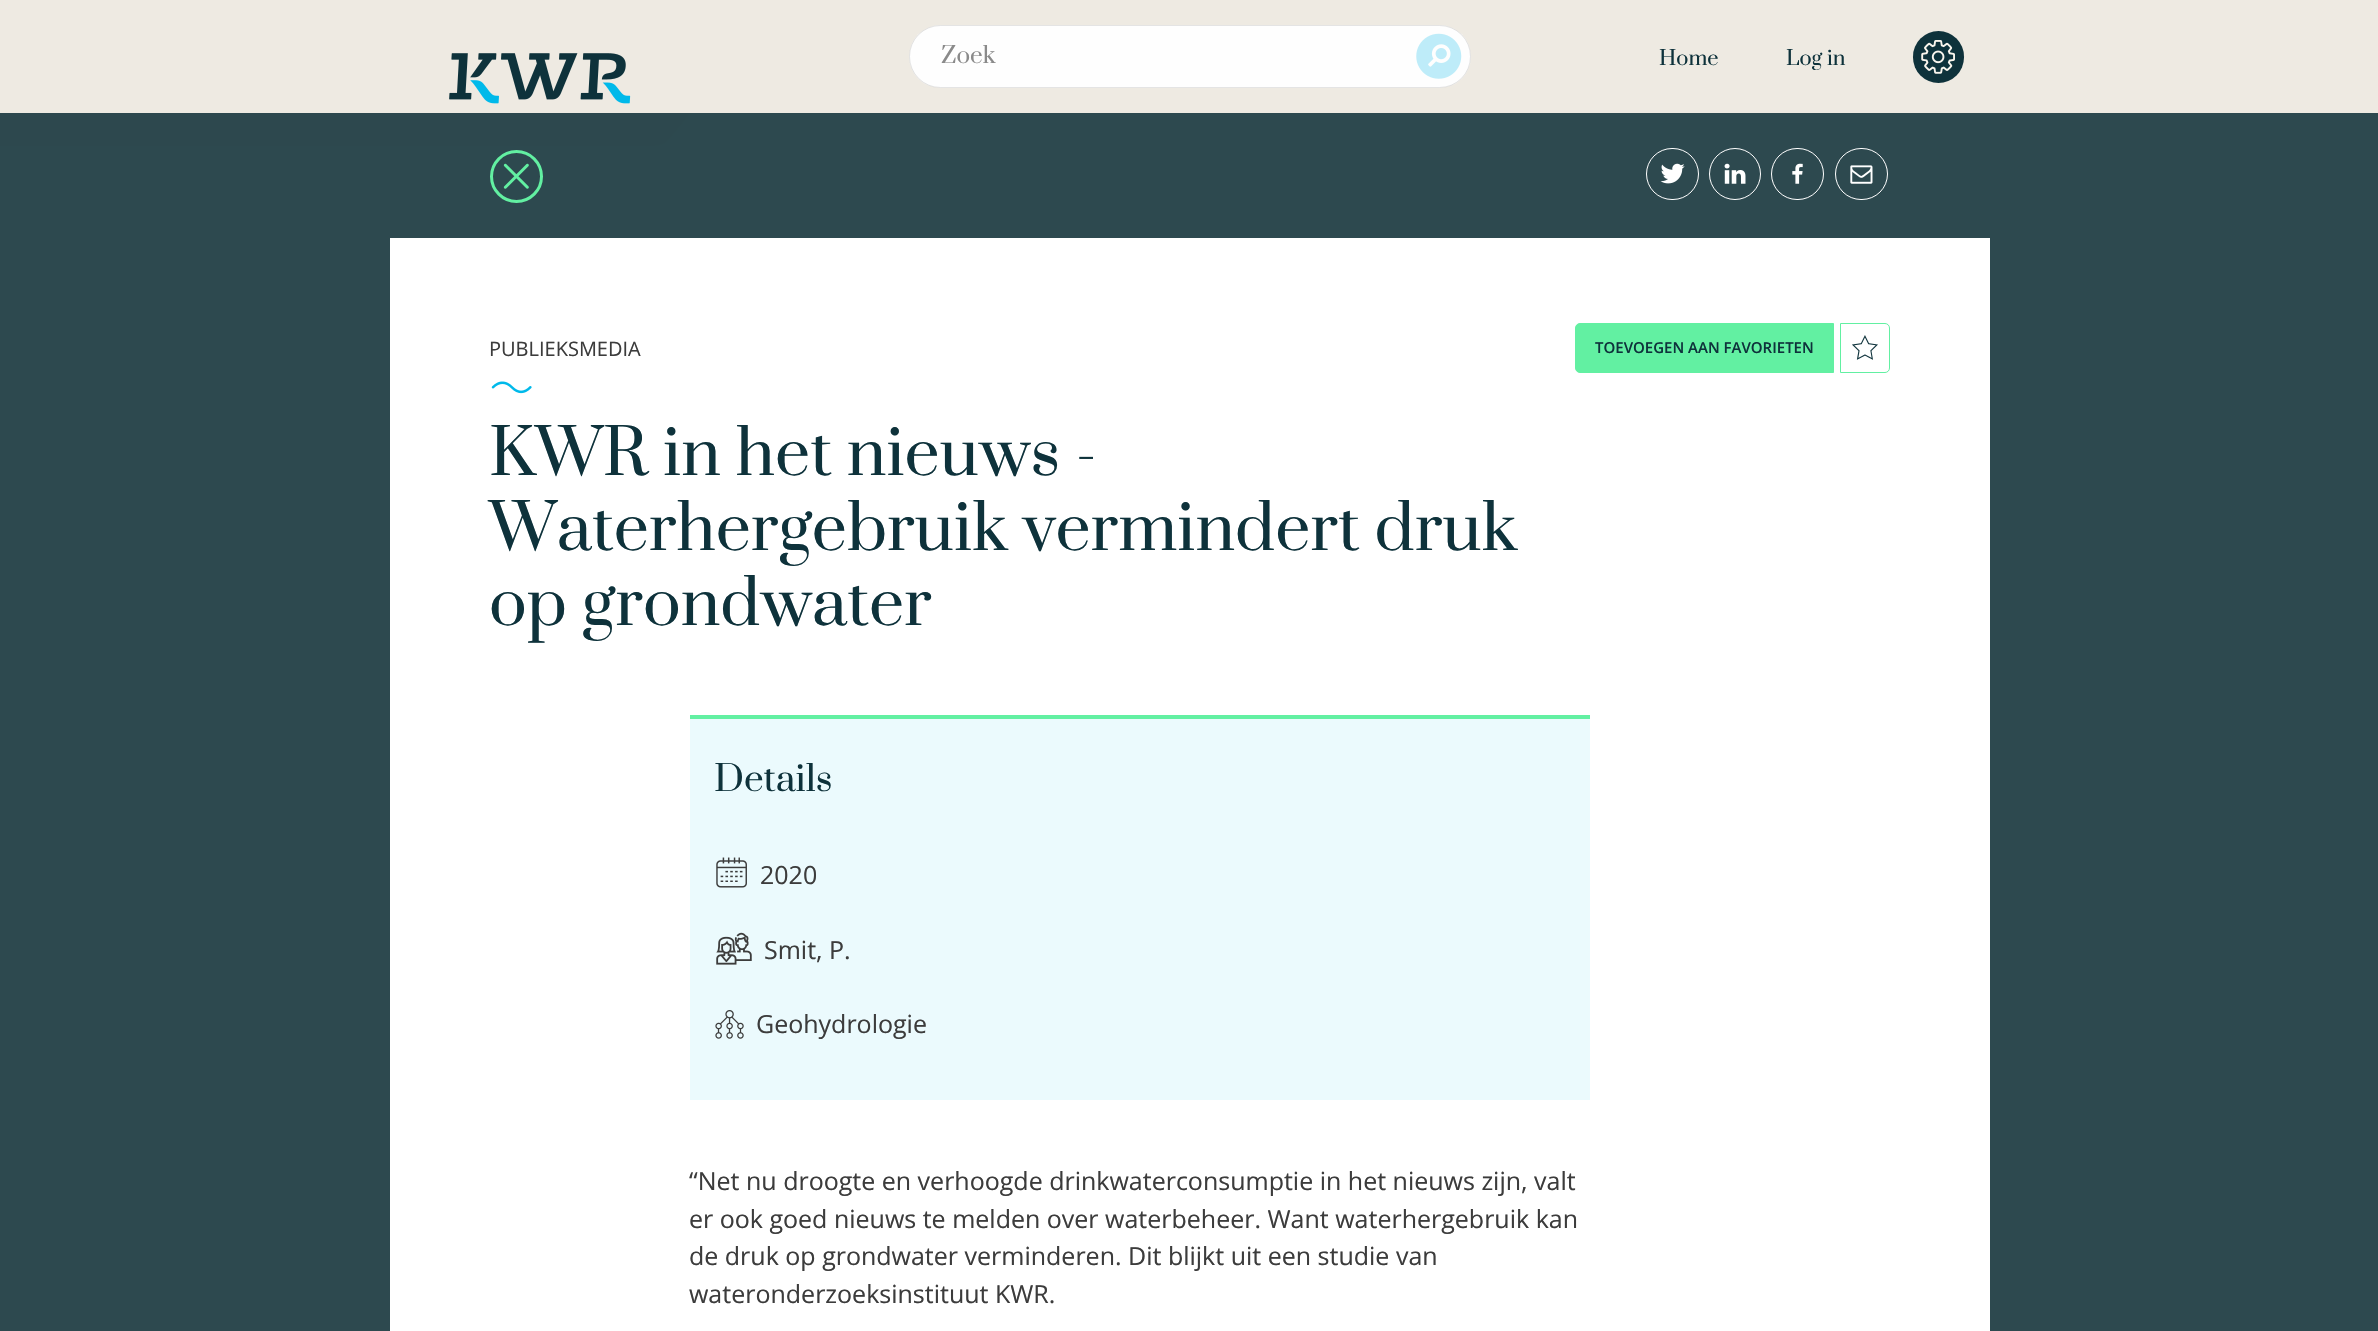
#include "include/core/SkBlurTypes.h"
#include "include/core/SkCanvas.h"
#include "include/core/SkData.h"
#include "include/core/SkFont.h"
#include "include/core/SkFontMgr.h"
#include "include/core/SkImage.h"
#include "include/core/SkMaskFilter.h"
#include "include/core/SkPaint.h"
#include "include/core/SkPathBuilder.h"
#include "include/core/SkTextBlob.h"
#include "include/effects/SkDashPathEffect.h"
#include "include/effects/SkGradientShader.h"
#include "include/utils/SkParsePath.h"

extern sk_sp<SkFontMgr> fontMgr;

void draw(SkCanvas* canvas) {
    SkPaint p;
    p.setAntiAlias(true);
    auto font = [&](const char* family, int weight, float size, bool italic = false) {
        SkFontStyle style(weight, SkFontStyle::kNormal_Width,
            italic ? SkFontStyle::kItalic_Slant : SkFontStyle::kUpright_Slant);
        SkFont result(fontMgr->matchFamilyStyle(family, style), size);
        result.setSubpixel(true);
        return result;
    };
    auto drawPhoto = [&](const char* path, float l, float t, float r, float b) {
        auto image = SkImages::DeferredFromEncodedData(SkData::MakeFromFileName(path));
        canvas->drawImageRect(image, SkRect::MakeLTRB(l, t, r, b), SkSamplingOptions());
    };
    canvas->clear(0xFFF9F5ED);
    p.setColor(0xFFEEEAE2);
    canvas->drawRect(SkRect::MakeLTRB(0, 0, 2378, 113), p);
    canvas->drawPath(SkPathBuilder().moveTo(365, 146).lineTo(365, 93).lineTo(896, 93).lineTo(897, 111).lineTo(700, 111).cubicTo(691, 111, 688, 115, 683, 122).lineTo(673, 134).cubicTo(668, 141, 664, 146, 650, 146).close().detach(), p);
    drawPhoto("media/1.png", 449, 53, 631, 104);
    p.setColor(0xFFFEFEFE);
    canvas->drawRoundRect(SkRect::MakeLTRB(909, 25, 1471, 88), 31.5f, 31.5f, p);
    p.setStyle(SkPaint::kStroke_Style);
    p.setStrokeWidth(1);
    p.setColor(0x1A000000);
    canvas->drawRoundRect(SkRect::MakeLTRB(909.5f, 25.5f, 1470.5f, 87.5f), 31, 31, p);
    auto font1 = font("Prata", 400, 22.5f);
    p.setStyle(SkPaint::kFill_Style);
    p.setColor(0xFF8A8A8A);
    canvas->drawString("Zoek", 941, 63, font1, p);
    drawPhoto("media/2.png", 1416, 33, 1462, 79);
    auto font2 = font("Prata", 400, 20);
    p.setColor(0xFF0E323B);
    canvas->drawString("Home", 1659, 65, font2, p);
    canvas->drawString("Log in", 1786, 65, font2, p);
    canvas->drawRoundRect(SkRect::MakeLTRB(1913, 31, 1964, 83), 25.5f, 25.5f, p);
    drawPhoto("media/3.png", 1921, 40, 1955, 74);
    p.setColor(0xFFEEEAE2);
    canvas->drawRect(SkRect::MakeLTRB(0, 113, 365, 146), p);
    p.setColor(0xF2223F46);
    canvas->drawRect(SkRect::MakeLTRB(0, 113, 2378, 1331), p);
    p.setStyle(SkPaint::kStroke_Style);
    p.setStrokeWidth(3);
    p.setColor(0xFF62F0A2);
    canvas->drawCircle(516.5f, 176.5f, 25, p);
    drawPhoto("media/4.png", 503, 163, 529, 189);
    p.setStrokeWidth(1);
    p.setColor(0xFFFFFFFF);
    canvas->drawRoundRect(SkRect::MakeLTRB(1646.5f, 148.5f, 1698.5f, 199.5f), 25.5f, 25.5f, p);
    drawPhoto("media/5.png", 1660, 163, 1685, 184);
    canvas->drawCircle(1735, 174, 25.5f, p);
    drawPhoto("media/6.png", 1724, 163, 1746, 184);
    canvas->drawRoundRect(SkRect::MakeLTRB(1771.5f, 148.5f, 1823.5f, 199.5f), 25.5f, 25.5f, p);
    drawPhoto("media/7.png", 1792, 163, 1803, 184);
    canvas->drawRoundRect(SkRect::MakeLTRB(1835.5f, 148.5f, 1887.5f, 199.5f), 25.5f, 25.5f, p);
    drawPhoto("media/8.png", 1850, 165, 1873, 184);
    p.setStyle(SkPaint::kFill_Style);
    canvas->drawRect(SkRect::MakeLTRB(390, 238, 1990, 1331), p);
    auto font3 = font("Open Sans", 400, 20);
    p.setColor(0xFF3C3C3C);
    canvas->drawString("PUBLIEKSMEDIA", 489, 356, font3, p);
    drawPhoto("media/9.png", 491, 381, 532, 394);
    p.setColor(0xFF62F0A2);
    canvas->drawPath(SkPathBuilder().moveTo(1580, 323.5f).lineTo(1833.5f, 323.5f).lineTo(1833.5f, 372.5f).lineTo(1580, 372.5f).cubicTo(1577.5f, 372.5f, 1575.5f, 370.5f, 1575.5f, 368).lineTo(1575.5f, 328).cubicTo(1575.5f, 325.5f, 1577.5f, 323.5f, 1580, 323.5f).close().detach(), p);
    p.setStyle(SkPaint::kStroke_Style);
    canvas->drawPath(SkPathBuilder().moveTo(1580, 323.5f).lineTo(1833.5f, 323.5f).lineTo(1833.5f, 372.5f).lineTo(1580, 372.5f).cubicTo(1577.5f, 372.5f, 1575.5f, 370.5f, 1575.5f, 368).lineTo(1575.5f, 328).cubicTo(1575.5f, 325.5f, 1577.5f, 323.5f, 1580, 323.5f).close().detach(), p);
    auto font4 = font("Open Sans", 600, 15);
    p.setStyle(SkPaint::kFill_Style);
    p.setColor(0xFF0E323B);
    canvas->drawString("TOEVOEGEN AAN FAVORIETEN", 1595, 353, font4, p);
    p.setStyle(SkPaint::kStroke_Style);
    p.setColor(0xFF62F0A2);
    canvas->drawPath(SkPathBuilder().moveTo(1840.5f, 323.5f).lineTo(1885, 323.5f).cubicTo(1887.5f, 323.5f, 1889.5f, 325.5f, 1889.5f, 328).lineTo(1889.5f, 368).cubicTo(1889.5f, 370.5f, 1887.5f, 372.5f, 1885, 372.5f).lineTo(1840.5f, 372.5f).close().detach(), p);
    drawPhoto("media/10.png", 1852, 335, 1878, 360);
    auto font5 = font("Prata", 400, 62.5f);
    p.setStyle(SkPaint::kFill_Style);
    p.setColor(0xFF0E323B);
    {
        const struct { const char* s; float x, y; } items[] = {
            {"KWR in het nieuws -", 489, 475},
            {"Waterhergebruik vermindert druk", 489, 550},
            {"op grondwater", 489, 625},
        };
        for (auto [s, x, y] : items) {
            canvas->drawString(s, x, y, font5, p);
        }
    }
    p.setColor(0xFFEBFAFD);
    canvas->drawRect(SkRect::MakeLTRB(690, 719, 1590, 1100), p);
    p.setColor(0xFF62F0A2);
    canvas->drawRect(SkRect::MakeLTRB(690, 715, 1590, 719), p);
    auto font6 = font("Prata", 400, 35);
    p.setColor(0xFF0E323B);
    canvas->drawString("Details", 714, 791, font6, p);
    drawPhoto("media/11.png", 716, 857, 747, 888);
    auto font7 = font("Open Sans", 400, 25);
    p.setColor(0xFF3C3C3C);
    canvas->drawString("2020", 760, 884, font7, p);
    drawPhoto("media/12.png", 716, 932, 752, 965);
    canvas->drawString("Smit, P.", 764, 959, font7, p);
    drawPhoto("media/13.png", 715, 1010, 744, 1039);
    {
        const struct { const char* s; float x, y; } items[] = {
            {"Geohydrologie", 756, 1033},
            {"“Net nu droogte en verhoogde drinkwaterconsumptie in het nieuws zijn, valt", 689, 1190},
            {"er ook goed nieuws te melden over waterbeheer. Want waterhergebruik kan", 689, 1228},
            {"de druk op grondwater verminderen. Dit blijkt uit een studie van", 689, 1265},
            {"wateronderzoeksinstituut KWR.", 689, 1303},
        };
        for (auto [s, x, y] : items) {
            canvas->drawString(s, x, y, font7, p);
        }
    }
}
